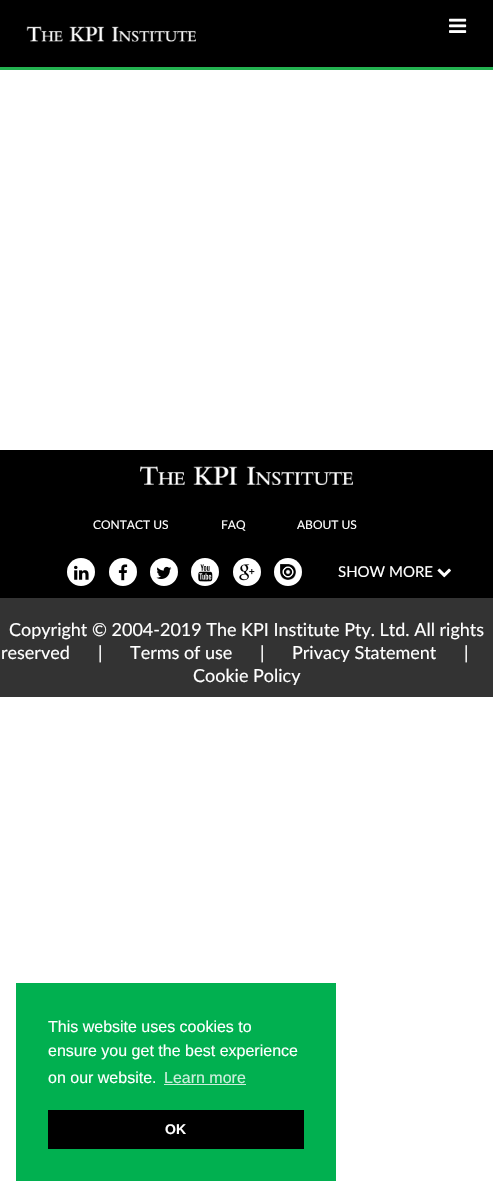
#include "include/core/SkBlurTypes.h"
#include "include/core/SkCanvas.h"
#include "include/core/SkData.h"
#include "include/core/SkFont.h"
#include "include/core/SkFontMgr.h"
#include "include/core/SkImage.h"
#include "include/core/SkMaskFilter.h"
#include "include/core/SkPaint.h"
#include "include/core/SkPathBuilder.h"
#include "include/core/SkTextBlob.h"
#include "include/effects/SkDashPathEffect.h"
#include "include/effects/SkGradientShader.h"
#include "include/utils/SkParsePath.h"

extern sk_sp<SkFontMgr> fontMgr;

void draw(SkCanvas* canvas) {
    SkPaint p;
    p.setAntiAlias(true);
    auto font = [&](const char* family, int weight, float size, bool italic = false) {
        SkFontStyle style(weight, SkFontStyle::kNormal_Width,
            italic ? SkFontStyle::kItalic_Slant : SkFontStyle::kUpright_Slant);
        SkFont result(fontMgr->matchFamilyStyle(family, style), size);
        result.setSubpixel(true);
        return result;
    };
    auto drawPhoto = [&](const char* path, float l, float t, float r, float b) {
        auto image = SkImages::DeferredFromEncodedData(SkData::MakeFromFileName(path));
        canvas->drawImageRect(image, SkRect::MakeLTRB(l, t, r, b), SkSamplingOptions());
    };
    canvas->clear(0xFFFFFFFF);
    p.setColor(0xFF000000);
    canvas->drawRect(SkRect::MakeLTRB(0, 0, 493, 67), p);
    p.setColor(0xFF23B150);
    canvas->drawRect(SkRect::MakeLTRB(0, 67, 493, 70), p);
    drawPhoto("media/1.png", 26, 26, 196, 42);
    drawPhoto("media/2.png", 449, 18, 467, 33);
    p.setColor(0xFF000000);
    canvas->drawRect(SkRect::MakeLTRB(0, 450, 493, 598), p);
    drawPhoto("media/3.png", 140, 466, 353, 485);
    auto font1 = font("Lato", 400, 12);
    p.setColor(0xFFFFFFFF);
    {
        const struct { const char* s; float x, y; } items[] = {
            {"CONTACT US", 93, 529},
            {"FAQ", 221, 529},
            {"ABOUT US", 297, 529},
        };
        for (auto [s, x, y] : items) {
            canvas->drawString(s, x, y, font1, p);
        }
    }
    canvas->drawCircle(81, 572, 14, p);
    drawPhoto("media/4.png", 74, 565, 89, 580);
    canvas->drawCircle(123, 572, 14, p);
    drawPhoto("media/5.png", 118, 564, 128, 581);
    canvas->drawCircle(164, 572, 14, p);
    drawPhoto("media/6.png", 156, 566, 172, 579);
    canvas->drawCircle(205, 572, 14, p);
    drawPhoto("media/7.png", 198, 564, 213, 582);
    canvas->drawCircle(247, 572, 14, p);
    drawPhoto("media/8.png", 239, 564, 255, 581);
    canvas->drawCircle(288, 572, 14, p);
    drawPhoto("media/9.png", 280, 564, 296, 580);
    auto font2 = font("Lato", 400, 15);
    canvas->drawString("SHOW MORE", 338, 577, font2, p);
    drawPhoto("media/10.png", 437, 568, 451, 578);
    p.setColor(0xFF333333);
    canvas->drawRect(SkRect::MakeLTRB(0, 598, 493, 697), p);
    auto font3 = font("Lato", 400, 18);
    p.setColor(0xFFFFFFFF);
    {
        const struct { const char* s; float x, y; } items[] = {
            {"Copyright © 2004-2019 The KPI Institute Pty. Ltd. All rights", 9, 636},
            {"reserved", 1, 659},
            {"|", 98, 659},
            {"Terms of use", 130, 659},
            {"|", 260, 659},
            {"Privacy Statement", 292, 659},
            {"|", 464, 659},
            {"Cookie Policy", 193, 682},
        };
        for (auto [s, x, y] : items) {
            canvas->drawString(s, x, y, font3, p);
        }
    }
    p.setColor(0xFF01B050);
    canvas->drawRect(SkRect::MakeLTRB(16, 983, 336, 1181), p);
    auto font4 = font("Liberation Sans", 400, 16);
    p.setColor(0xFFFFFFFF);
    {
        const struct { const char* s; float x, y; } items[] = {
            {"This website uses cookies to", 48, 1032},
            {"ensure you get the best experience", 48, 1056},
            {"on our website.", 48, 1083},
        };
        for (auto [s, x, y] : items) {
            canvas->drawString(s, x, y, font4, p);
        }
    }
    p.setColor(0xFFCCEFDC);
    canvas->drawString("Learn more", 164, 1083, font4, p);
    canvas->drawRect(SkRect::MakeLTRB(164, 1084, 246, 1085), p);
    p.setColor(0xFF000000);
    canvas->drawRect(SkRect::MakeLTRB(48, 1110, 304, 1149), p);
    auto font5 = font("Liberation Sans", 700, 14);
    p.setColor(0xFFFFFFFF);
    canvas->drawString("OK", 165, 1134, font5, p);
}
